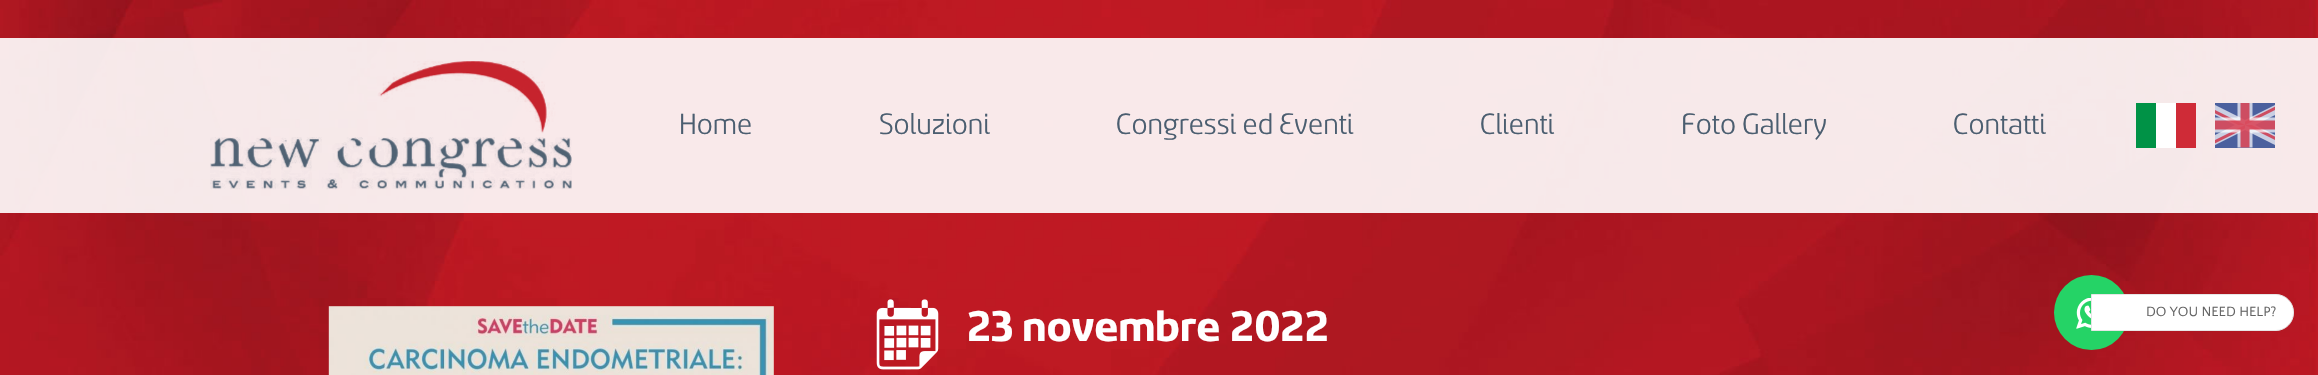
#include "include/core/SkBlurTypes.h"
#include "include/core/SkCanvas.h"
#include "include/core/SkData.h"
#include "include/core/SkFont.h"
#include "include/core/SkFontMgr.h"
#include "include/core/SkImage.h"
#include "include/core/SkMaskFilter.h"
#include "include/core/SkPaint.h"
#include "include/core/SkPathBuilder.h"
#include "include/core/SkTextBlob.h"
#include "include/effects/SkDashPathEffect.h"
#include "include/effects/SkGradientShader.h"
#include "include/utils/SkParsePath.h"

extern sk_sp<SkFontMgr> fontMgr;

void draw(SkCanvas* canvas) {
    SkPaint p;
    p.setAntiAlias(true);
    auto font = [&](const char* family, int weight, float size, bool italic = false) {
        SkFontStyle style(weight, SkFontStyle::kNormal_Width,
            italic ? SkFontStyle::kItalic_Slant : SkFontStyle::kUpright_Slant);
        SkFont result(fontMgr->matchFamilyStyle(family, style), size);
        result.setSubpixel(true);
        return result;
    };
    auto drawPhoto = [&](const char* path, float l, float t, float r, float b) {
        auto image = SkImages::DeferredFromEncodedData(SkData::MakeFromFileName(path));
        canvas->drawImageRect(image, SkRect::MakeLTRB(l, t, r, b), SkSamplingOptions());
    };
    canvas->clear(0xFFFFFFFF);
    drawPhoto("media/1.png", 0, 0, 2318, 375);
    p.setColor(0xE6FFFFFF);
    canvas->drawRect(SkRect::MakeLTRB(0, 38, 2318, 213), p);
    drawPhoto("media/2.png", 210, 61, 572, 190);
    auto font1 = font("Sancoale", 400, 32.5f);
    p.setColor(0xFF4B5E70);
    {
        const struct { const char* s; float x, y; } items[] = {
            {"Home", 679, 134},
            {"Soluzioni", 879, 134},
            {"Congressi ed Eventi", 1116, 134},
            {"Clienti", 1480, 134},
            {"Foto Gallery", 1681, 134},
            {"Contatti", 1953, 134},
        };
        for (auto [s, x, y] : items) {
            canvas->drawString(s, x, y, font1, p);
        }
    }
    {
        const struct { float l, t, r, b; SkColor color; } items[] = {
            {2136, 103, 2156, 148, 0xFF009246},
            {2156, 103, 2176, 148, 0xFFFFFFFF},
            {2176, 103, 2196, 148, 0xFFCF2B37},
        };
        for (auto [l, t, r, b, color] : items) {
            p.setColor(color);
            canvas->drawRect(SkRect::MakeLTRB(l, t, r, b), p);
        }
    }
    drawPhoto("media/3.png", 2215, 103, 2275, 148);
    drawPhoto("media/4.png", 328, 306, 774, 375);
    drawPhoto("media/5.png", 876, 299, 939, 370);
    auto font2 = font("Sancoale", 700, 47.5f);
    p.setColor(0xFFFFFFFF);
    canvas->drawString("23 novembre 2022", 967, 341, font2, p);
    p.setColor(0xFF25D366);
    canvas->drawCircle(2091.5f, 312.5f, 37.5f, p);
    drawPhoto("media/6.png", 2076, 298, 2091, 329);
    p.setColor(0xFFFFFFFF);
    canvas->drawPath(SkPathBuilder().moveTo(2091.5f, 294.5f).lineTo(2276, 294.5f).cubicTo(2285.5f, 294.5f, 2293.5f, 302.5f, 2293.5f, 312).lineTo(2293.5f, 313).cubicTo(2293.5f, 322.5f, 2285.5f, 330.5f, 2276, 330.5f).lineTo(2091.5f, 330.5f).close().detach(), p);
    p.setStyle(SkPaint::kStroke_Style);
    p.setStrokeWidth(1);
    p.setColor(0xFFE6E6E6);
    canvas->drawPath(SkPathBuilder().moveTo(2091.5f, 294.5f).lineTo(2276, 294.5f).cubicTo(2285.5f, 294.5f, 2293.5f, 302.5f, 2293.5f, 312).lineTo(2293.5f, 313).cubicTo(2293.5f, 322.5f, 2285.5f, 330.5f, 2276, 330.5f).lineTo(2091.5f, 330.5f).close().detach(), p);
    auto font3 = font("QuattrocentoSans", 400, 14);
    p.setStyle(SkPaint::kFill_Style);
    p.setColor(0xFF646464);
    canvas->drawString("DO YOU NEED HELP?", 2146, 316, font3, p);
}
